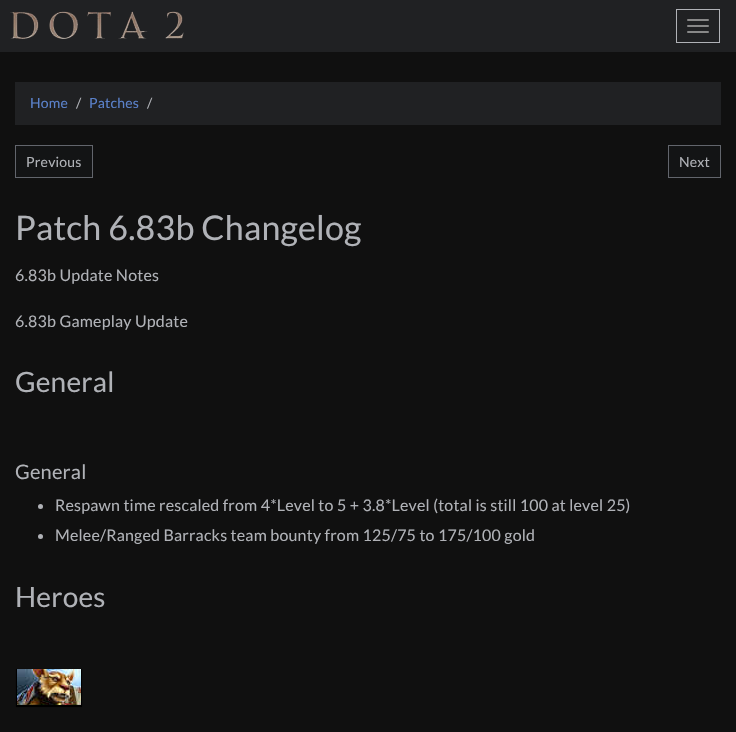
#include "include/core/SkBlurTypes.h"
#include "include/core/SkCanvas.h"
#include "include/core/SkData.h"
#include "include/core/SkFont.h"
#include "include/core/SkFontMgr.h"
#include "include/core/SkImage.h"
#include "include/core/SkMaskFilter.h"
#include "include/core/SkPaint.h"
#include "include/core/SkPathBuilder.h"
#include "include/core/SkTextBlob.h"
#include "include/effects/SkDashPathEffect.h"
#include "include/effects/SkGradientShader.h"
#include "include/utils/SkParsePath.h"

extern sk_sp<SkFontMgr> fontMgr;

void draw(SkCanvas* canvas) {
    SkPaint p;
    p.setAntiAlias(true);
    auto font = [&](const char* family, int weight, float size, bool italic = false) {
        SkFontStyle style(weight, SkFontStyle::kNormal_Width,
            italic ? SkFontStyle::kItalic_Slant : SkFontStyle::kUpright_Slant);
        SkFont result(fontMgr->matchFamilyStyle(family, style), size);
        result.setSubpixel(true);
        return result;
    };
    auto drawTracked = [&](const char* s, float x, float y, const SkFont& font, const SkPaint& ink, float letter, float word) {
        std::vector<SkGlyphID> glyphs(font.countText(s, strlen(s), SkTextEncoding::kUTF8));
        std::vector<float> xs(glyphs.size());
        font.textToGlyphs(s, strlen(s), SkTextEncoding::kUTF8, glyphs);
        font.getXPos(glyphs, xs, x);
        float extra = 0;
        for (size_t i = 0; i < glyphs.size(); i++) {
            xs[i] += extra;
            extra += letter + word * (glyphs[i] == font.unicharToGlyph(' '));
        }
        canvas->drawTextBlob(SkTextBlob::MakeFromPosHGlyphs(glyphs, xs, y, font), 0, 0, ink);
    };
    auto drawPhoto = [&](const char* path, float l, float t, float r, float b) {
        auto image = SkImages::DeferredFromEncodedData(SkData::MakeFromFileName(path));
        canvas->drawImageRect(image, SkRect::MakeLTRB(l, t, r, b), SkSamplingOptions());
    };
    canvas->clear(0xFF101010);
    p.setColor(0xFF202123);
    canvas->drawRect(SkRect::MakeLTRB(0, 0, 736, 52), p);
    drawPhoto("media/1.png", 10, 11, 184, 39);
    p.setStyle(SkPaint::kStroke_Style);
    p.setStrokeWidth(1);
    p.setColor(0xFFB0B2B7);
    canvas->drawRect(SkRect::MakeLTRB(676.5f, 9.5f, 719.5f, 42.5f), p);
    p.setStyle(SkPaint::kFill_Style);
    p.setColor(0xFF888888);
    canvas->drawRoundRect(SkRect::MakeLTRB(687, 19, 709, 21), 1, 1, p);
    canvas->drawRoundRect(SkRect::MakeLTRB(687, 25, 709, 27), 1, 1, p);
    canvas->drawRoundRect(SkRect::MakeLTRB(687, 31, 709, 33), 1, 1, p);
    p.setColor(0xFF202123);
    canvas->drawRect(SkRect::MakeLTRB(15, 82, 721, 125), p);
    auto font1 = font("Lato", 400, 14);
    p.setColor(0xFF5A81CA);
    drawTracked("Home", 30, 108, font1, p, 0.2f, 0);
    p.setColor(0xFFB0B2B7);
    drawTracked("/", 76, 108, font1, p, 0.2f, 0);
    p.setColor(0xFF5A81CA);
    drawTracked("Patches", 89, 108, font1, p, 0.2f, 0);
    p.setColor(0xFFB0B2B7);
    drawTracked("/", 147, 108, font1, p, 0.2f, 0);
    p.setColor(0xFF131415);
    canvas->drawRect(SkRect::MakeLTRB(15.5f, 145.5f, 92.5f, 177.5f), p);
    p.setStyle(SkPaint::kStroke_Style);
    p.setColor(0xFF62656C);
    canvas->drawRect(SkRect::MakeLTRB(15.5f, 145.5f, 92.5f, 177.5f), p);
    p.setStyle(SkPaint::kFill_Style);
    p.setColor(0xFFB0B2B7);
    drawTracked("Previous", 26, 167, font1, p, 0.2f, 0);
    p.setColor(0xFF131415);
    canvas->drawRect(SkRect::MakeLTRB(668.5f, 145.5f, 720.5f, 177.5f), p);
    p.setStyle(SkPaint::kStroke_Style);
    p.setColor(0xFF62656C);
    canvas->drawRect(SkRect::MakeLTRB(668.5f, 145.5f, 720.5f, 177.5f), p);
    p.setStyle(SkPaint::kFill_Style);
    p.setColor(0xFFB0B2B7);
    drawTracked("Next", 679, 167, font1, p, 0.2f, 0);
    auto font2 = font("Lato", 400, 34);
    drawTracked("Patch 6.83b Changelog", 15, 240, font2, p, 0.2f, 0);
    auto font3 = font("Lato", 400, 16);
    drawTracked("6.83b Update Notes", 15, 281, font3, p, 0.2f, 0);
    drawTracked("6.83b Gameplay Update", 15, 327, font3, p, 0.2f, 0);
    auto font4 = font("Lato", 400, 28);
    drawTracked("General", 15, 392, font4, p, 0.2f, 0);
    auto font5 = font("Lato", 400, 20);
    drawTracked("General", 15, 479, font5, p, 0.2f, 0);
    canvas->drawCircle(40.5f, 506.5f, 2.5f, p);
    drawTracked("Respawn time rescaled from 4*Level to 5 + 3.8*Level (total is still 100 at level 25)", 55, 511, font3, p, 0.2f, 0);
    canvas->drawCircle(40.5f, 536.5f, 2.5f, p);
    drawTracked("Melee/Ranged Barracks team bounty from 125/75 to 175/100 gold", 55, 541, font3, p, 0.2f, 0);
    drawTracked("Heroes", 15, 607, font4, p, 0.2f, 0);
    p.setColor(0xFF000000);
    p.setMaskFilter(SkMaskFilter::MakeBlur(kNormal_SkBlurStyle, 0.5f));
    canvas->drawRect(SkRect::MakeLTRB(16, 669, 82, 707), p);
    p.setMaskFilter(nullptr);
    drawPhoto("media/2.png", 17, 669, 81, 705);
}
